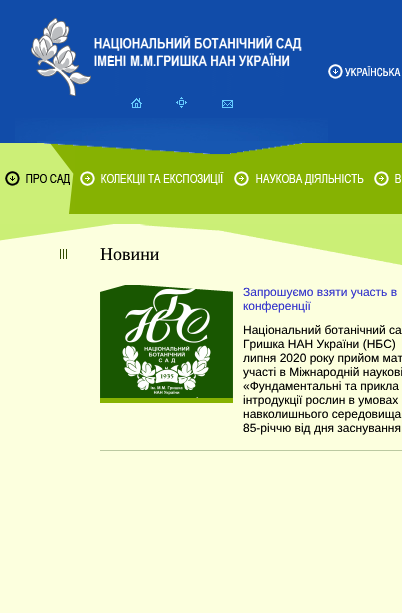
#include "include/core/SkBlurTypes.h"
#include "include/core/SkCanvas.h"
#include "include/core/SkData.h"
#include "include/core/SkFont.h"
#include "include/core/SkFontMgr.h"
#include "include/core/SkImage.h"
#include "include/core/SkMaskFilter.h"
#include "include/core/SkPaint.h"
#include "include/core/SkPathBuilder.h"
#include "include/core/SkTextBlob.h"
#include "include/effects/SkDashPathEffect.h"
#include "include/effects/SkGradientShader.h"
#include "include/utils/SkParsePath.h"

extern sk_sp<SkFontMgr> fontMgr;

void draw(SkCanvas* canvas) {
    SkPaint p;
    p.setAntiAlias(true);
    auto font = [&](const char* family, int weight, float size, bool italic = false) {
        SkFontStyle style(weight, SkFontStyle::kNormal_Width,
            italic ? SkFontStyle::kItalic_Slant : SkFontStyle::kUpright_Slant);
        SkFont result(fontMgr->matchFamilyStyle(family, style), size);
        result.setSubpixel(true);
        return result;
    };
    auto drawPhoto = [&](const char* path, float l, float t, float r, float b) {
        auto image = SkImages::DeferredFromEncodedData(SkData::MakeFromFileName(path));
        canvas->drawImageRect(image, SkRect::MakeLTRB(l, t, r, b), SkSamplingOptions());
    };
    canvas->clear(0xFF114CA9);
    drawPhoto("media/1.png", 15, 118, 328, 142);
    drawPhoto("media/2.png", 31, 18, 302, 96);
    drawPhoto("media/3.png", 131, 98, 142, 108);
    drawPhoto("media/4.png", 176, 97, 187, 108);
    drawPhoto("media/5.png", 222, 100, 233, 108);
    p.setColor(0xFF86B202);
    canvas->drawRect(SkRect::MakeLTRB(75, 143, 402, 214), p);
    p.setColor(0xFFCCEF77);
    canvas->drawRect(SkRect::MakeLTRB(0, 143, 50, 214), p);
    drawPhoto("media/8.png", 50, 143, 75, 214);
    drawPhoto("media/6.png", 37, 141, 305, 155);
    drawPhoto("media/7.png", 328, 64, 401, 79);
    drawPhoto("media/9.png", 5, 171, 70, 186);
    drawPhoto("media/10.png", 80, 171, 224, 186);
    drawPhoto("media/11.png", 234, 171, 364, 186);
    drawPhoto("media/12.png", 374, 171, 401, 186);
    canvas->drawRect(SkRect::MakeLTRB(0, 214, 402, 224), p);
    p.setColor(0xFFFCFFDE);
    canvas->drawRect(SkRect::MakeLTRB(0, 224, 402, 613), p);
    drawPhoto("media/13.png", 0, 224, 113, 241);
    drawPhoto("media/14.png", 140, 224, 402, 265);
    drawPhoto("media/15.png", 60, 249, 67, 259);
    auto font1 = font("Liberation Serif", 400, 18);
    p.setColor(0xFF000000);
    canvas->drawString("Новини", 100, 260, font1, p);
    p.setColor(0xFFBBC9A1);
    canvas->drawRect(SkRect::MakeLTRB(100, 450, 402, 451), p);
    drawPhoto("media/16.png", 100, 285, 233, 398);
    p.setColor(0xFF86B202);
    canvas->drawRect(SkRect::MakeLTRB(100, 398, 233, 403), p);
    drawPhoto("media/17.png", 100, 285, 233, 292);
    auto font2 = font("Liberation Sans", 400, 12);
    p.setColor(0xFF3333CC);
    canvas->drawString("Запрошуємо взяти участь в", 243, 296, font2, p);
    canvas->drawString("конференції", 243, 310, font2, p);
    p.setColor(0xFF000000);
    {
        const struct { const char* s; float x, y; } items[] = {
            {"Національний ботанічний са", 243, 334},
            {"Гришка НАН України (НБС)", 243, 348},
            {"липня 2020 року прийом мат", 243, 362},
            {"участі в Міжнародній наукові", 243, 376},
            {"«Фундаментальні та прикла", 243, 390},
            {"інтродукції рослин в умовах", 243, 404},
            {"навколишнього середовища", 243, 418},
            {"85-річчю від дня заснування", 243, 432},
        };
        for (auto [s, x, y] : items) {
            canvas->drawString(s, x, y, font2, p);
        }
    }
}
